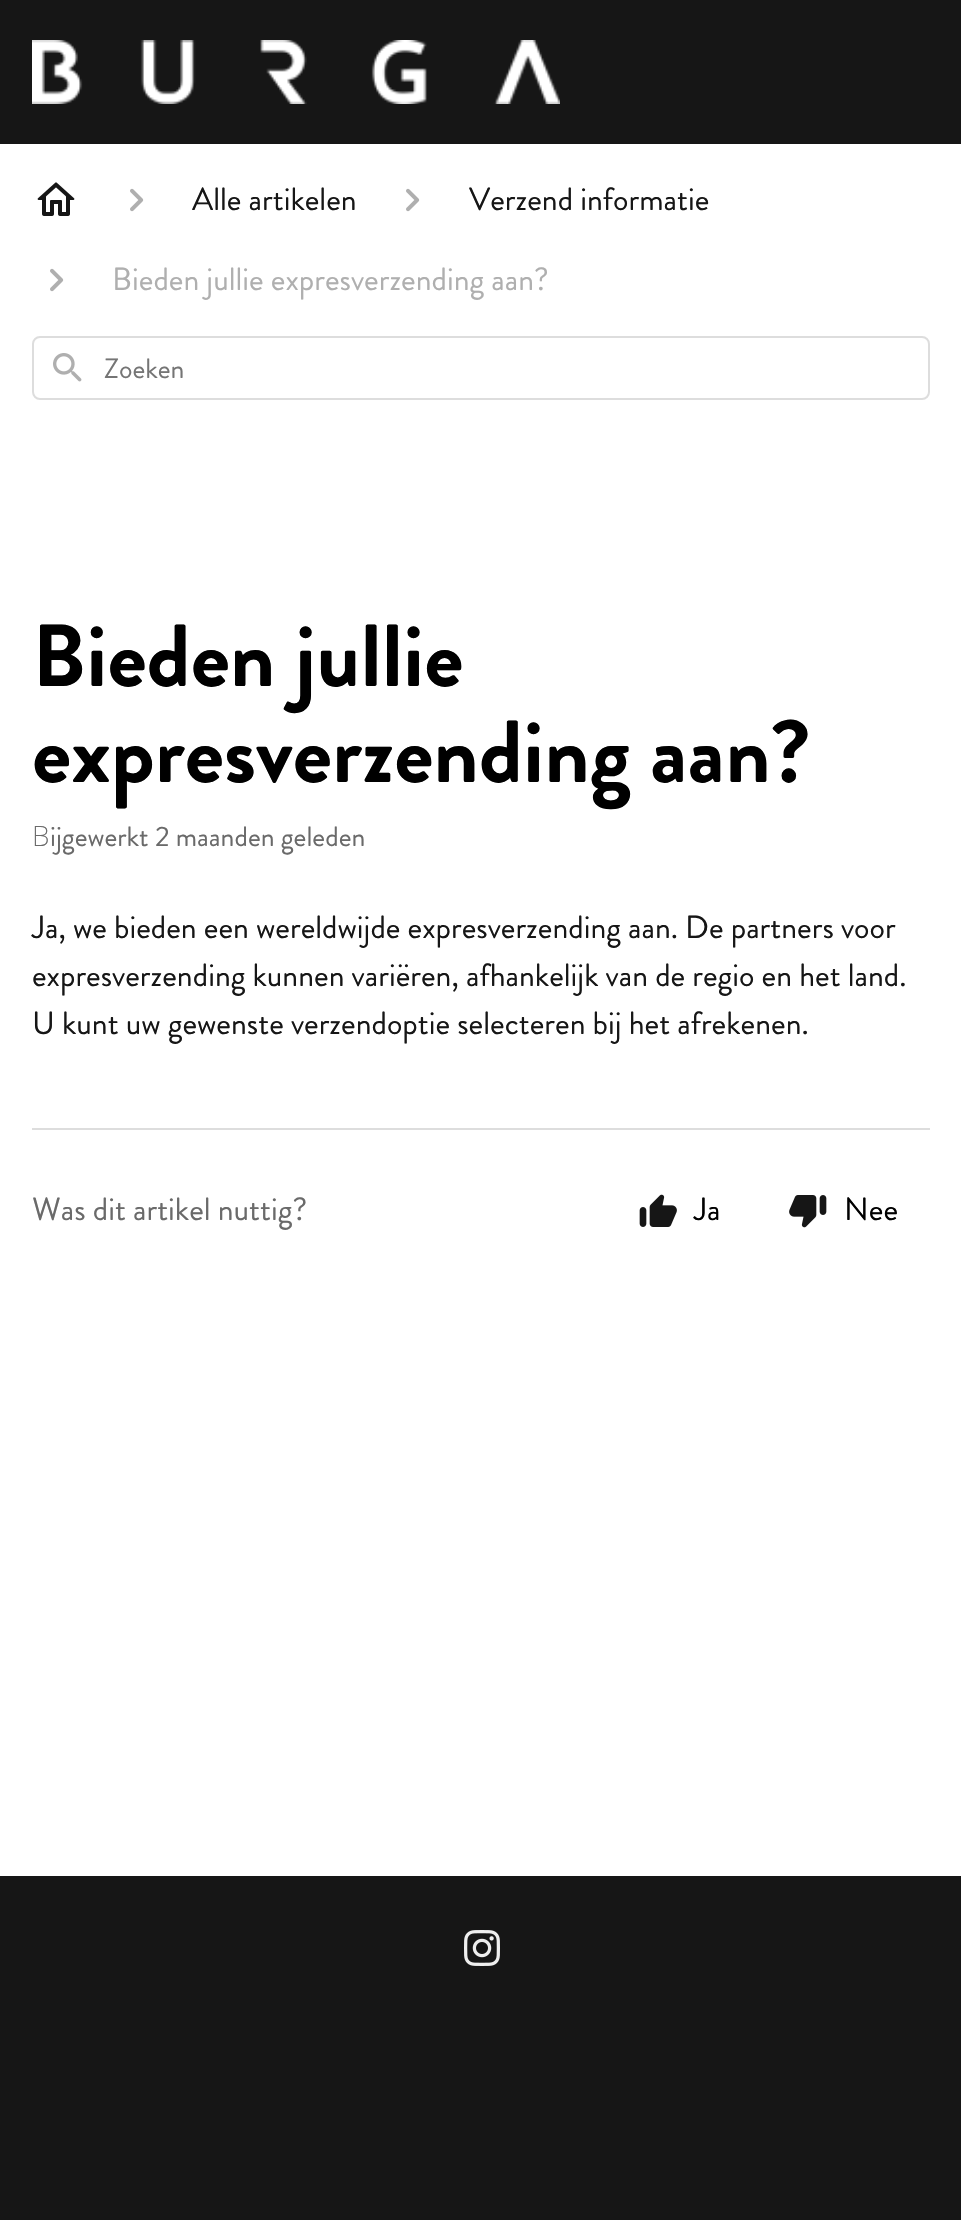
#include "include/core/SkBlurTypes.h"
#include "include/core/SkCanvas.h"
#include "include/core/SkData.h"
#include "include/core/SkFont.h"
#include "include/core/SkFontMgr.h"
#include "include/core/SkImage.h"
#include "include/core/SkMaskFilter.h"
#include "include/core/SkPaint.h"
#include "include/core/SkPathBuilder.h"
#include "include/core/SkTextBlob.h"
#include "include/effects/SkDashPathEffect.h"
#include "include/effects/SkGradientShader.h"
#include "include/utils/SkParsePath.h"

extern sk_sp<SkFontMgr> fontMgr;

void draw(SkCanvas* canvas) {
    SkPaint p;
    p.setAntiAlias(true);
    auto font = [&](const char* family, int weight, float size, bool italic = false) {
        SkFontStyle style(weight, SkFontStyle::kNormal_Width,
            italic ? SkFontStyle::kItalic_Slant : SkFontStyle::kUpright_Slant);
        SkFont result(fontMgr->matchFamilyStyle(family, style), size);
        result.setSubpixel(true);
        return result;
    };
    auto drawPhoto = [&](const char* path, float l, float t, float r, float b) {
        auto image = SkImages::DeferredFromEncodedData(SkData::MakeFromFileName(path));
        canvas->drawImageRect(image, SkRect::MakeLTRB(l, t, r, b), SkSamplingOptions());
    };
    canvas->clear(0xFFFFFFFF);
    p.setColor(0xFF161616);
    canvas->drawRect(SkRect::MakeLTRB(0, 0, 961, 144), p);
    drawPhoto("media/1.png", 32, 40, 560, 104);
    drawPhoto("media/2.png", 37, 182, 75, 216);
    drawPhoto("media/3.png", 130, 188, 144, 212);
    auto font1 = font("Brandon Grotesque", 400, 32);
    canvas->drawString("Alle artikelen", 192, 210, font1, p);
    drawPhoto("media/3.png", 406, 188, 420, 212);
    canvas->drawString("Verzend informatie", 469, 210, font1, p);
    drawPhoto("media/3.png", 50, 268, 64, 292);
    p.setColor(0xFFAFAFAF);
    canvas->drawString("Bieden jullie expresverzending aan?", 112, 290, font1, p);
    p.setStyle(SkPaint::kStroke_Style);
    p.setStrokeWidth(2);
    p.setColor(0xFFDDDDDD);
    canvas->drawRoundRect(SkRect::MakeLTRB(33, 337, 929, 399), 7, 7, p);
    drawPhoto("media/4.png", 53, 353, 82, 382);
    auto font2 = font("Brandon Grotesque", 400, 28);
    p.setStyle(SkPaint::kFill_Style);
    p.setColor(0xFF757575);
    canvas->drawString("Zoeken", 104, 378, font2, p);
    auto font3 = font("Brandon Grotesque", 700, 88);
    p.setColor(0xFF000000);
    canvas->drawString("Bieden jullie", 32, 686, font3, p);
    canvas->drawString("expresverzending aan?", 32, 782, font3, p);
    auto font4 = font("Noto Sans", 200, 28);
    p.setColor(0xFF6A6A6A);
    canvas->drawString("B", 32, 846, font4, p);
    canvas->drawString("ijgewerkt 2 maanden geleden", 50, 846, font2, p);
    p.setColor(0xFF161616);
    {
        const struct { const char* s; float x, y; } items[] = {
            {"Ja, we bieden een wereldwijde expresverzending aan. De partners voor", 32, 938},
            {"expresverzending kunnen variëren, afhankelijk van de regio en het land.", 32, 986},
            {"U kunt uw gewenste verzendoptie selecteren bij het afrekenen.", 32, 1034},
        };
        for (auto [s, x, y] : items) {
            canvas->drawString(s, x, y, font1, p);
        }
    }
    p.setColor(0xFFDDDDDD);
    canvas->drawRect(SkRect::MakeLTRB(32, 1128, 930, 1130), p);
    p.setColor(0xFF6A6A6A);
    canvas->drawString("Was dit artikel nuttig?", 32, 1220, font1, p);
    drawPhoto("media/5.png", 639, 1194, 677, 1227);
    p.setColor(0xFF000000);
    canvas->drawString("Ja", 694, 1220, font1, p);
    drawPhoto("media/6.png", 789, 1195, 827, 1228);
    canvas->drawString("Nee", 844, 1220, font1, p);
    p.setColor(0xFF161616);
    canvas->drawRect(SkRect::MakeLTRB(0, 1876, 961, 2220), p);
    drawPhoto("media/7.png", 464, 1930, 500, 1966);
}
